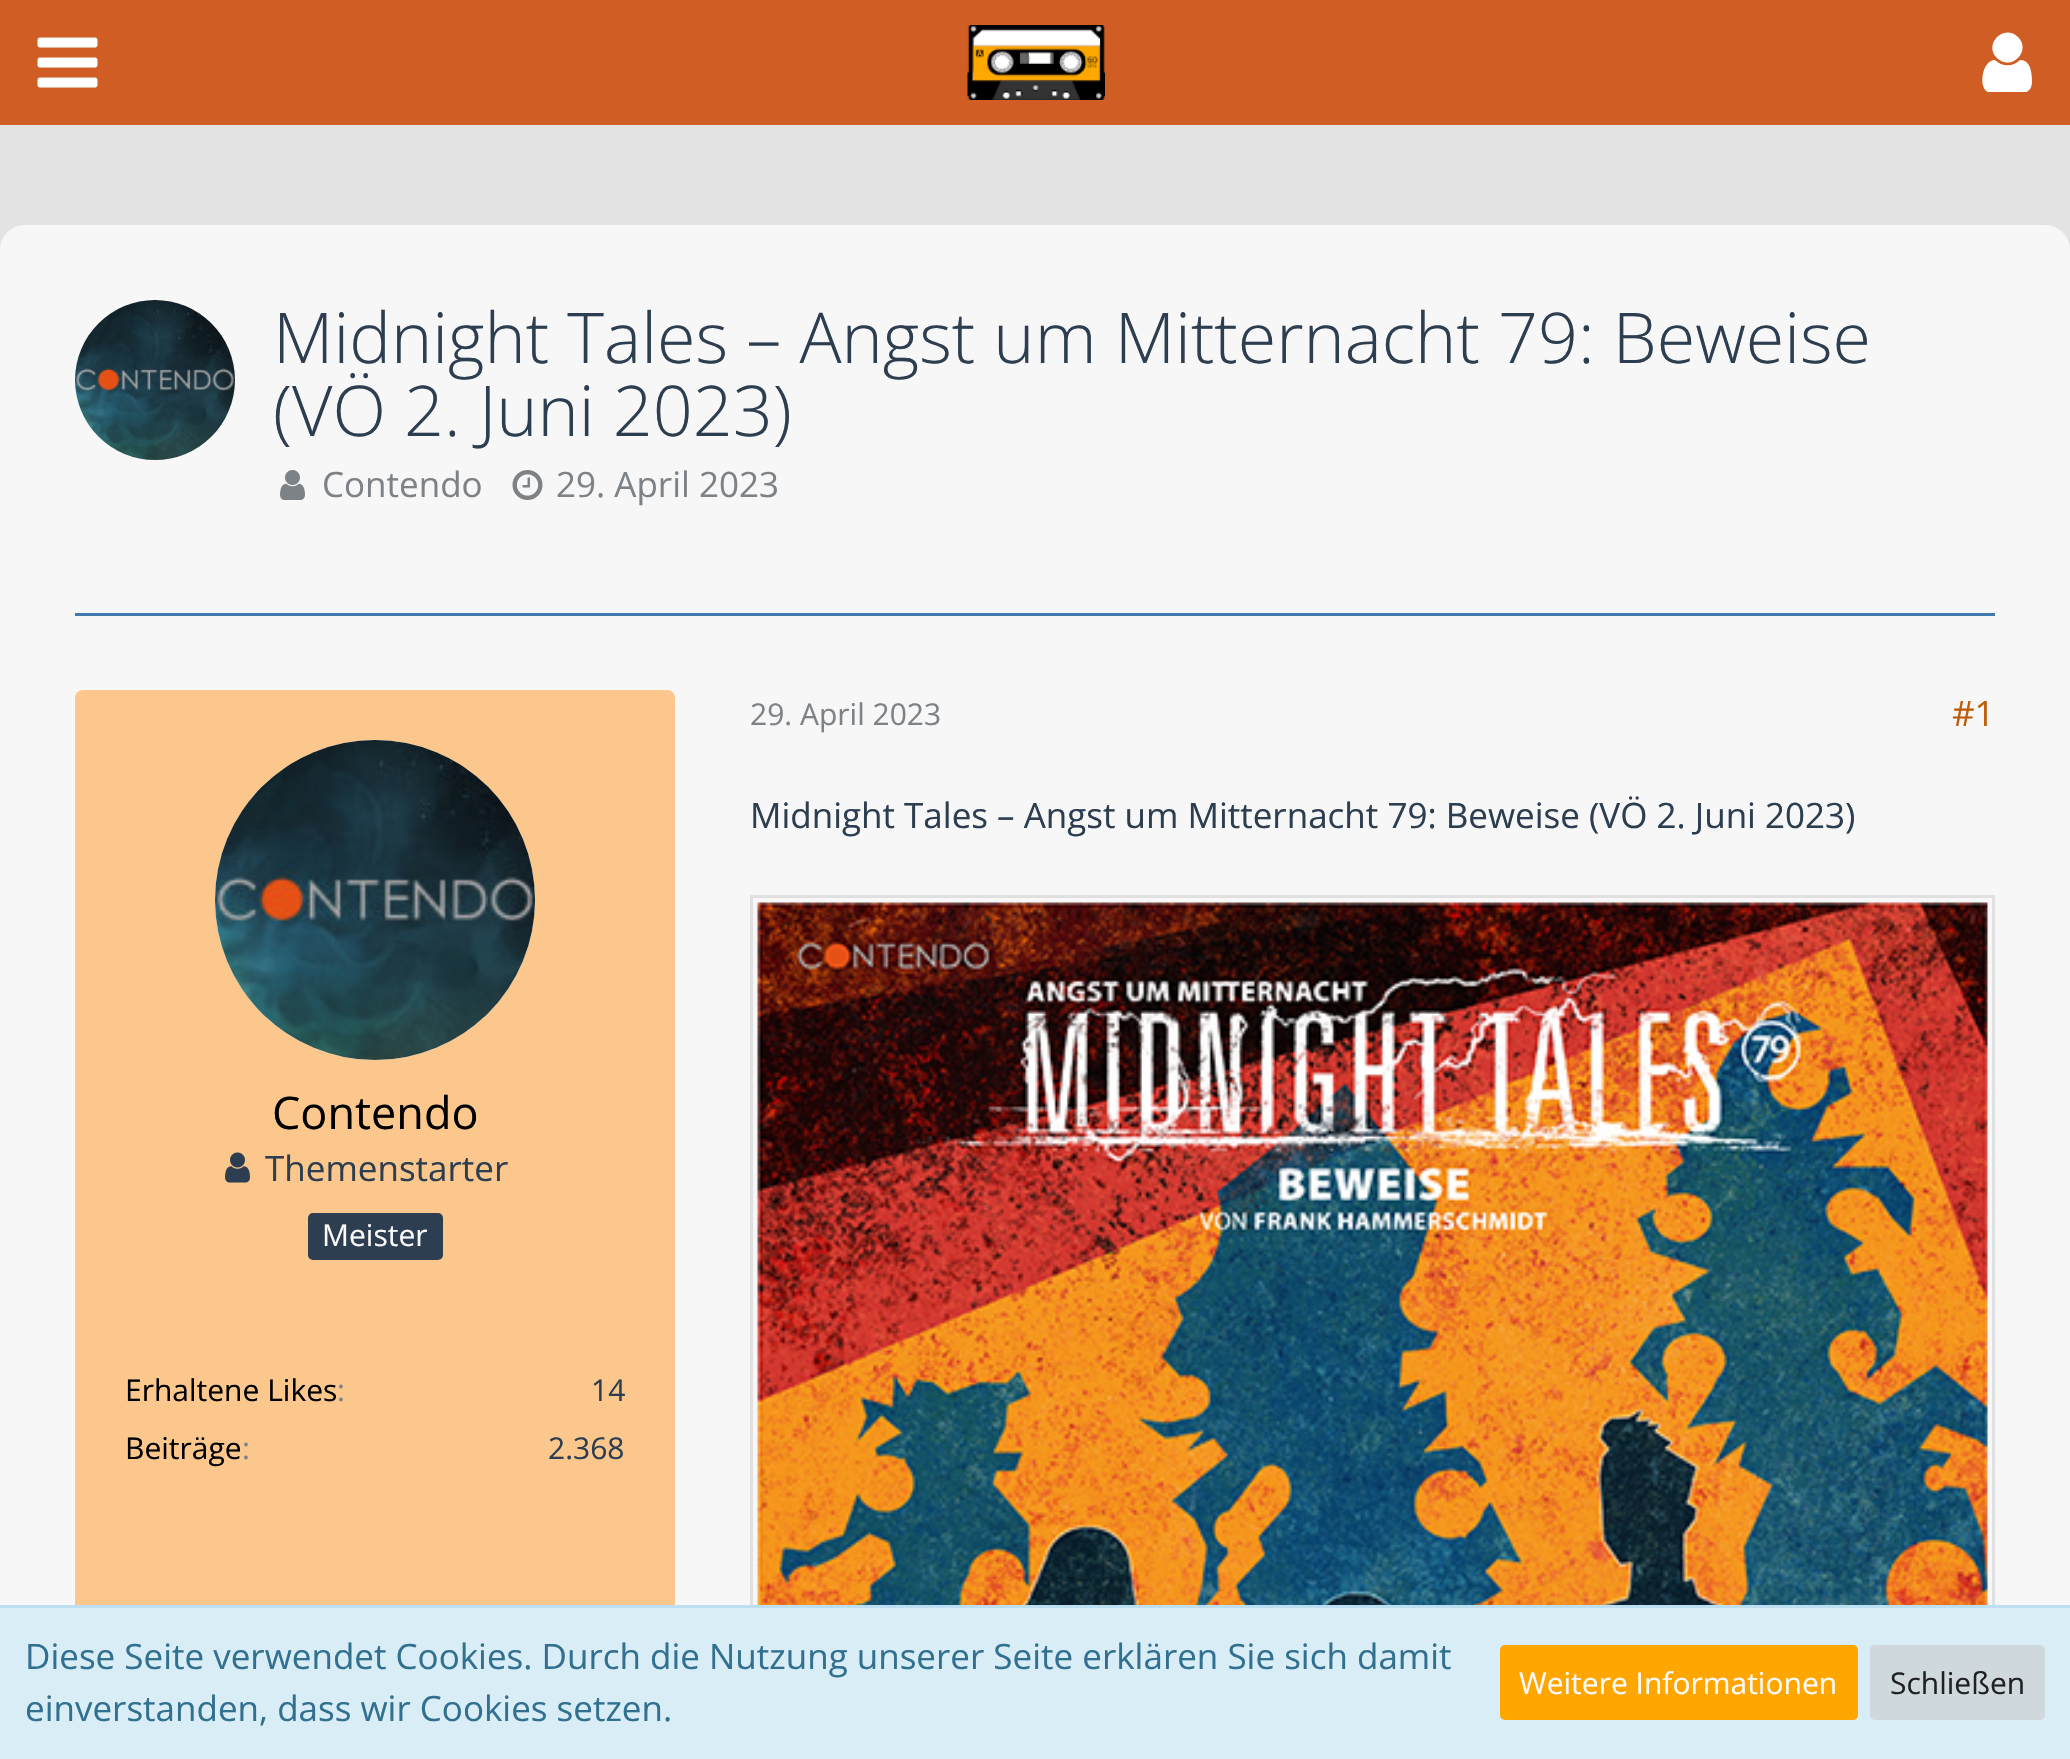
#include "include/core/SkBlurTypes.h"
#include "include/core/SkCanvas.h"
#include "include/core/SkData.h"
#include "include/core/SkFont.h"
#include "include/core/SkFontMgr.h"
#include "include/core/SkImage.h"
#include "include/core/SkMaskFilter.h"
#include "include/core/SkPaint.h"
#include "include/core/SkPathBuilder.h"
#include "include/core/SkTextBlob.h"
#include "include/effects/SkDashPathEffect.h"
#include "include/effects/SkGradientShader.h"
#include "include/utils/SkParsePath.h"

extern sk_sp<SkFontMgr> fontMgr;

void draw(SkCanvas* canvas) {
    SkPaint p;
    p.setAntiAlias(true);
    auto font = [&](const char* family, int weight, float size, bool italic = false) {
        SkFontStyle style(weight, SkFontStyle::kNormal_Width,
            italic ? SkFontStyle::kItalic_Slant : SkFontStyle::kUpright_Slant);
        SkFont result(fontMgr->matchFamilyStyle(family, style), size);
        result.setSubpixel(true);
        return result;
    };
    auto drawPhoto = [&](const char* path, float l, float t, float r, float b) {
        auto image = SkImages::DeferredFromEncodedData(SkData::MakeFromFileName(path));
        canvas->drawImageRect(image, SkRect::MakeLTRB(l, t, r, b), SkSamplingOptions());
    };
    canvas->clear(0xFFE3E3E3);
    p.setColor(0xFFCF5D24);
    canvas->drawRect(SkRect::MakeLTRB(0, 0, 2070, 125), p);
    drawPhoto("media/1.png", 37, 37, 98, 88);
    p.setColor(0xFFFFFFFF);
    canvas->drawPath(SkPathBuilder().moveTo(2032, 82).cubicTo(2032, 86, 2030, 91, 2026, 92).lineTo(1996, 92).lineTo(1988, 92).cubicTo(1978, 88, 1982, 60, 1995, 60).cubicTo(2002, 67, 2013, 67, 2020, 60).cubicTo(2031, 60, 2032, 74, 2032, 82).close().moveTo(2018, 37).cubicTo(2032, 51, 2011, 72, 1997, 58).cubicTo(1983, 44, 2004, 23, 2018, 37).close().detach(), p);
    drawPhoto("media/2.png", 967, 25, 1105, 100);
    p.setColor(0xFFF7F7F7);
    canvas->drawRoundRect(SkRect::MakeLTRB(12.5f, 237.5f, 2057.5f, 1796.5f), 12.5f, 12.5f, p);
    p.setStyle(SkPaint::kStroke_Style);
    p.setStrokeWidth(25);
    canvas->drawRoundRect(SkRect::MakeLTRB(12.5f, 237.5f, 2057.5f, 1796.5f), 12.5f, 12.5f, p);
    p.setStyle(SkPaint::kFill_Style);
    p.setColor(0xFFFFFFFF);
    canvas->drawCircle(155, 380, 80, p);
    drawPhoto("media/3.png", 75, 300, 235, 460);
    auto font1 = font("Open Sans", 300, 70);
    p.setColor(0xFF2C3E50);
    canvas->drawString("Midnight Tales – Angst um Mitternacht 79: Beweise", 273, 363, font1, p);
    canvas->drawString("(VÖ 2. Juni 2023)", 273, 436, font1, p);
    drawPhoto("media/4.png", 280, 470, 305, 500);
    auto font2 = font("Open Sans", 400, 35);
    p.setColor(0xFF7D8287);
    canvas->drawString("Contendo", 322, 497, font2, p);
    drawPhoto("media/5.png", 512, 470, 543, 500);
    canvas->drawString("29. April 2023", 556, 497, font2, p);
    p.setColor(0xFF4179AD);
    canvas->drawRect(SkRect::MakeLTRB(75, 613, 1995, 616), p);
    auto font3 = font("Open Sans", 400, 30);
    p.setColor(0xFF7D8287);
    canvas->drawString("29. April 2023", 750, 725, font3, p);
    p.setColor(0xFFBE5E0A);
    canvas->drawString("#1", 1952, 726, font2, p);
    p.setColor(0xFF2C3E50);
    canvas->drawString("Midnight Tales – Angst um Mitternacht 79: Beweise (VÖ 2. Juni 2023)", 750, 828, font2, p);
    p.setStyle(SkPaint::kStroke_Style);
    p.setStrokeWidth(3);
    p.setColor(0xFFE0E0E0);
    canvas->drawRect(SkRect::MakeLTRB(751.5f, 896.5f, 1993.5f, 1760.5f), p);
    drawPhoto("media/6.png", 757, 902, 1988, 1605);
    p.setStyle(SkPaint::kFill_Style);
    p.setColor(0xFFFBC78C);
    canvas->drawRoundRect(SkRect::MakeLTRB(75, 690, 675, 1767), 8, 8, p);
    p.setColor(0xFFFFFFFF);
    canvas->drawCircle(375, 900, 160, p);
    drawPhoto("media/7.png", 215, 740, 535, 1060);
    auto font4 = font("Open Sans", 400, 45);
    p.setColor(0xFF000000);
    canvas->drawString("Contendo", 272, 1129, font4, p);
    drawPhoto("media/8.png", 225, 1152, 250, 1183);
    p.setColor(0xFF2C3E50);
    canvas->drawString("Themenstarter", 265, 1181, font2, p);
    canvas->drawRoundRect(SkRect::MakeLTRB(308, 1213, 443, 1260), 5, 5, p);
    p.setColor(0xFFFAFAFA);
    canvas->drawString("Meister", 322, 1246, font3, p);
    p.setColor(0xFF000000);
    canvas->drawString("Erhaltene Likes", 125, 1401, font3, p);
    p.setColor(0xFF7D8287);
    canvas->drawString(":", 337, 1401, font3, p);
    p.setColor(0xFF2C3E50);
    canvas->drawString("14", 591, 1401, font3, p);
    p.setColor(0xFF000000);
    canvas->drawString("Beiträge", 125, 1459, font3, p);
    p.setColor(0xFF7D8287);
    canvas->drawString(":", 242, 1459, font3, p);
    p.setColor(0xFF2C3E50);
    canvas->drawString("2.368", 548, 1459, font3, p);
    p.setColor(0xFFD9EDF7);
    canvas->drawRect(SkRect::MakeLTRB(0, 1608, 2070, 1759), p);
    p.setColor(0xFFBCDFF1);
    canvas->drawRect(SkRect::MakeLTRB(0, 1605, 2070, 1608), p);
    p.setColor(0xFF31708F);
    canvas->drawString("Diese Seite verwendet Cookies. Durch die Nutzung unserer Seite erklären Sie sich damit", 25, 1669, font2, p);
    canvas->drawString("einverstanden, dass wir Cookies setzen.", 25, 1721, font2, p);
    p.setColor(0xFFFFA600);
    canvas->drawRoundRect(SkRect::MakeLTRB(1500, 1645, 1858, 1720), 5, 5, p);
    p.setColor(0xFFFAFAFA);
    canvas->drawString("Weitere Informationen", 1519, 1694, font3, p);
    p.setColor(0xFFCFD8DC);
    canvas->drawRoundRect(SkRect::MakeLTRB(1870, 1645, 2045, 1720), 5, 5, p);
    p.setColor(0xFF212121);
    canvas->drawString("Schließen", 1890, 1694, font3, p);
}
